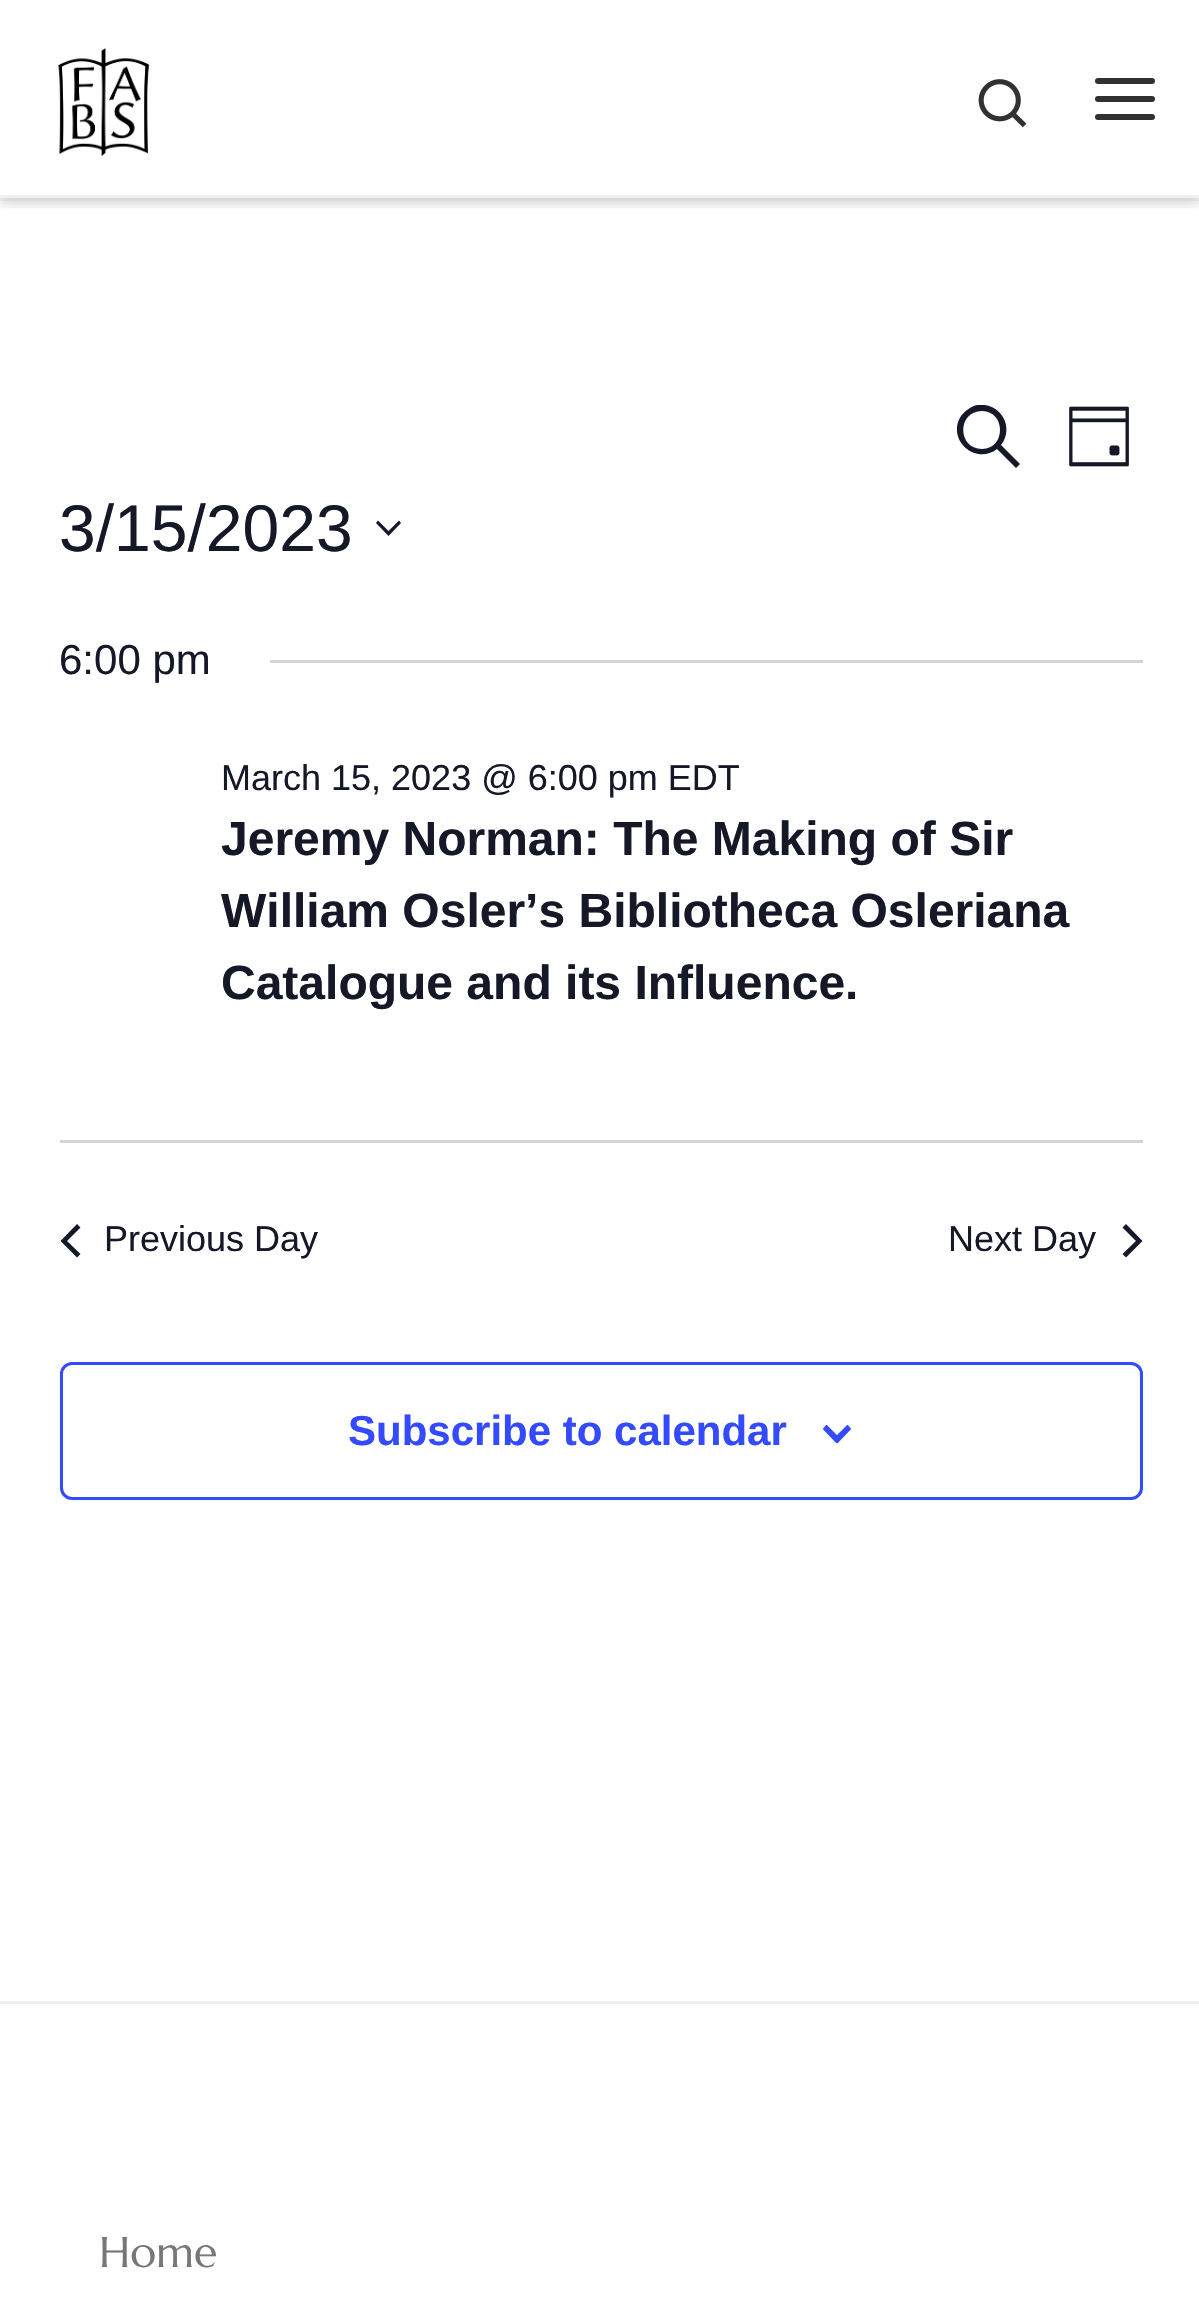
#include "include/core/SkBlurTypes.h"
#include "include/core/SkCanvas.h"
#include "include/core/SkData.h"
#include "include/core/SkFont.h"
#include "include/core/SkFontMgr.h"
#include "include/core/SkImage.h"
#include "include/core/SkMaskFilter.h"
#include "include/core/SkPaint.h"
#include "include/core/SkPathBuilder.h"
#include "include/core/SkTextBlob.h"
#include "include/effects/SkDashPathEffect.h"
#include "include/effects/SkGradientShader.h"
#include "include/utils/SkParsePath.h"

extern sk_sp<SkFontMgr> fontMgr;

void draw(SkCanvas* canvas) {
    SkPaint p;
    p.setAntiAlias(true);
    auto font = [&](const char* family, int weight, float size, bool italic = false) {
        SkFontStyle style(weight, SkFontStyle::kNormal_Width,
            italic ? SkFontStyle::kItalic_Slant : SkFontStyle::kUpright_Slant);
        SkFont result(fontMgr->matchFamilyStyle(family, style), size);
        result.setSubpixel(true);
        return result;
    };
    auto drawPhoto = [&](const char* path, float l, float t, float r, float b) {
        auto image = SkImages::DeferredFromEncodedData(SkData::MakeFromFileName(path));
        canvas->drawImageRect(image, SkRect::MakeLTRB(l, t, r, b), SkSamplingOptions());
    };
    canvas->clear(0xFFFFFFFF);
    canvas->save();
    canvas->clipRect(SkRect::MakeLTRB(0, 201, 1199, 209));
    p.setColor(0x14666666);
    p.setMaskFilter(SkMaskFilter::MakeBlur(kNormal_SkBlurStyle, 3));
    canvas->drawRect(SkRect::MakeLTRB(0, 6, 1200, 207), p);
    p.setMaskFilter(nullptr);
    canvas->restore();
    p.setColor(0xFFEFEFEF);
    canvas->drawRect(SkRect::MakeLTRB(0, 198, 1199, 201), p);
    canvas->save();
    canvas->clipRect(SkRect::MakeLTRB(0, 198, 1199, 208));
    p.setColor(0x33000000);
    p.setMaskFilter(SkMaskFilter::MakeBlur(kNormal_SkBlurStyle, 7.5f));
    canvas->drawRect(SkRect::MakeLTRB(0, 0, 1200, 198), p);
    p.setMaskFilter(nullptr);
    canvas->restore();
    drawPhoto("media/1.png", 58, 48, 150, 156);
    drawPhoto("media/2.png", 978, 79, 1027, 128);
    p.setColor(0xFF313131);
    canvas->drawRoundRect(SkRect::MakeLTRB(1095, 78, 1155, 84), 3, 3, p);
    canvas->drawRoundRect(SkRect::MakeLTRB(1095, 96, 1155, 102), 3, 3, p);
    canvas->drawRoundRect(SkRect::MakeLTRB(1095, 114, 1155, 120), 3, 3, p);
    p.setColor(0xFFF0F0F0);
    canvas->drawRect(SkRect::MakeLTRB(0, 195, 1199, 198), p);
    canvas->save();
    canvas->clipRect(SkRect::MakeLTRB(957, 405, 1020, 468));
    p.setColor(0xFF141827);
    canvas->drawPath(SkPathBuilder(SkPathFillType::kEvenOdd).moveTo(1001, 445).lineTo(1020, 464).lineTo(1016, 468).lineTo(997, 449).cubicTo(975, 466, 946, 439, 961, 416).cubicTo(965, 411, 970, 407, 977, 405).cubicTo(985, 404, 993, 406, 999, 412).cubicTo(1008, 421, 1009, 435, 1001, 445).close().moveTo(982, 411).cubicTo(957, 411, 957, 449, 982, 449).cubicTo(1006, 449, 1006, 411, 982, 411).close().detach(), p);
    canvas->restore();
    drawPhoto("media/3.png", 1069, 406, 1129, 467);
    auto font1 = font("Liberation Sans", 400, 66);
    canvas->drawString("3/15/2023", 59, 551, font1, p);
    canvas->drawPath(SkPathBuilder(SkPathFillType::kEvenOdd).moveTo(378, 520.5f).lineTo(388.5f, 531).lineTo(399, 520.5f).lineTo(401, 523).lineTo(388.5f, 536).lineTo(376, 523).close().detach(), p);
    auto font2 = font("Liberation Sans", 400, 42);
    canvas->drawString("6:00 pm", 59, 674, font2, p);
    p.setColor(0xFFD5D5D5);
    canvas->drawRect(SkRect::MakeLTRB(270, 660, 1143, 663), p);
    auto font3 = font("Liberation Sans", 400, 36);
    p.setColor(0xFF141827);
    canvas->drawString("March 15, 2023 @ 6:00 pm EDT", 221, 790, font3, p);
    auto font4 = font("Liberation Sans", 700, 48);
    {
        const struct { const char* s; float x, y; } items[] = {
            {"Jeremy Norman: The Making of Sir", 221, 855},
            {"William Osler’s Bibliotheca Osleriana", 221, 927},
            {"Catalogue and its Influence.", 221, 999},
        };
        for (auto [s, x, y] : items) {
            canvas->drawString(s, x, y, font4, p);
        }
    }
    p.setColor(0xFFD5D5D5);
    canvas->drawRect(SkRect::MakeLTRB(60, 1140, 1143, 1143), p);
    p.setColor(0xFF141827);
    canvas->drawPath(SkPathBuilder().moveTo(80.5f, 1254).lineTo(77, 1257.5f).lineTo(60.5f, 1241).lineTo(77, 1224).lineTo(80.5f, 1227.5f).lineTo(67, 1241).close().detach(), p);
    canvas->drawString("Previous Day", 104, 1251, font3, p);
    canvas->drawString("Next Day", 948, 1251, font3, p);
    canvas->drawPath(SkPathBuilder().moveTo(1122.5f, 1227.5f).lineTo(1126, 1224).lineTo(1142.5f, 1241).lineTo(1126, 1257.5f).lineTo(1122.5f, 1254).lineTo(1136, 1241).close().detach(), p);
    p.setStyle(SkPaint::kStroke_Style);
    p.setStrokeWidth(3);
    p.setColor(0xFF334AFF);
    canvas->drawRoundRect(SkRect::MakeLTRB(61.5f, 1363.5f, 1141.5f, 1498.5f), 10.5f, 10.5f, p);
    auto font5 = font("Liberation Sans", 700, 42);
    p.setStyle(SkPaint::kFill_Style);
    canvas->drawString("Subscribe to calendar", 348, 1445, font5, p);
    canvas->drawPath(SkPathBuilder(SkPathFillType::kEvenOdd).moveTo(826.5f, 1426.5f).lineTo(837, 1437).lineTo(847.5f, 1426.5f).lineTo(849.5f, 1429).lineTo(837, 1442).lineTo(824.5f, 1429).close().detach(), p);
    canvas->save();
    canvas->clipRect(SkRect::MakeLTRB(822, 1425, 852, 1443));
    p.setStyle(SkPaint::kStroke_Style);
    p.setStrokeWidth(2.6f);
    canvas->drawPath(SkPathBuilder().moveTo(826.5f, 1426.5f).lineTo(837, 1437).lineTo(847.5f, 1426.5f).lineTo(849.5f, 1429).lineTo(837, 1442).lineTo(824.5f, 1429).close().detach(), p);
    canvas->restore();
    p.setStyle(SkPaint::kFill_Style);
    p.setColor(0xFFECEEEF);
    canvas->drawRect(SkRect::MakeLTRB(0, 2001, 1199, 2004), p);
    auto font6 = font("Marcellus", 400, 43);
    p.setColor(0xFF777777);
    canvas->drawString("Home", 99, 2267, font6, p);
}
